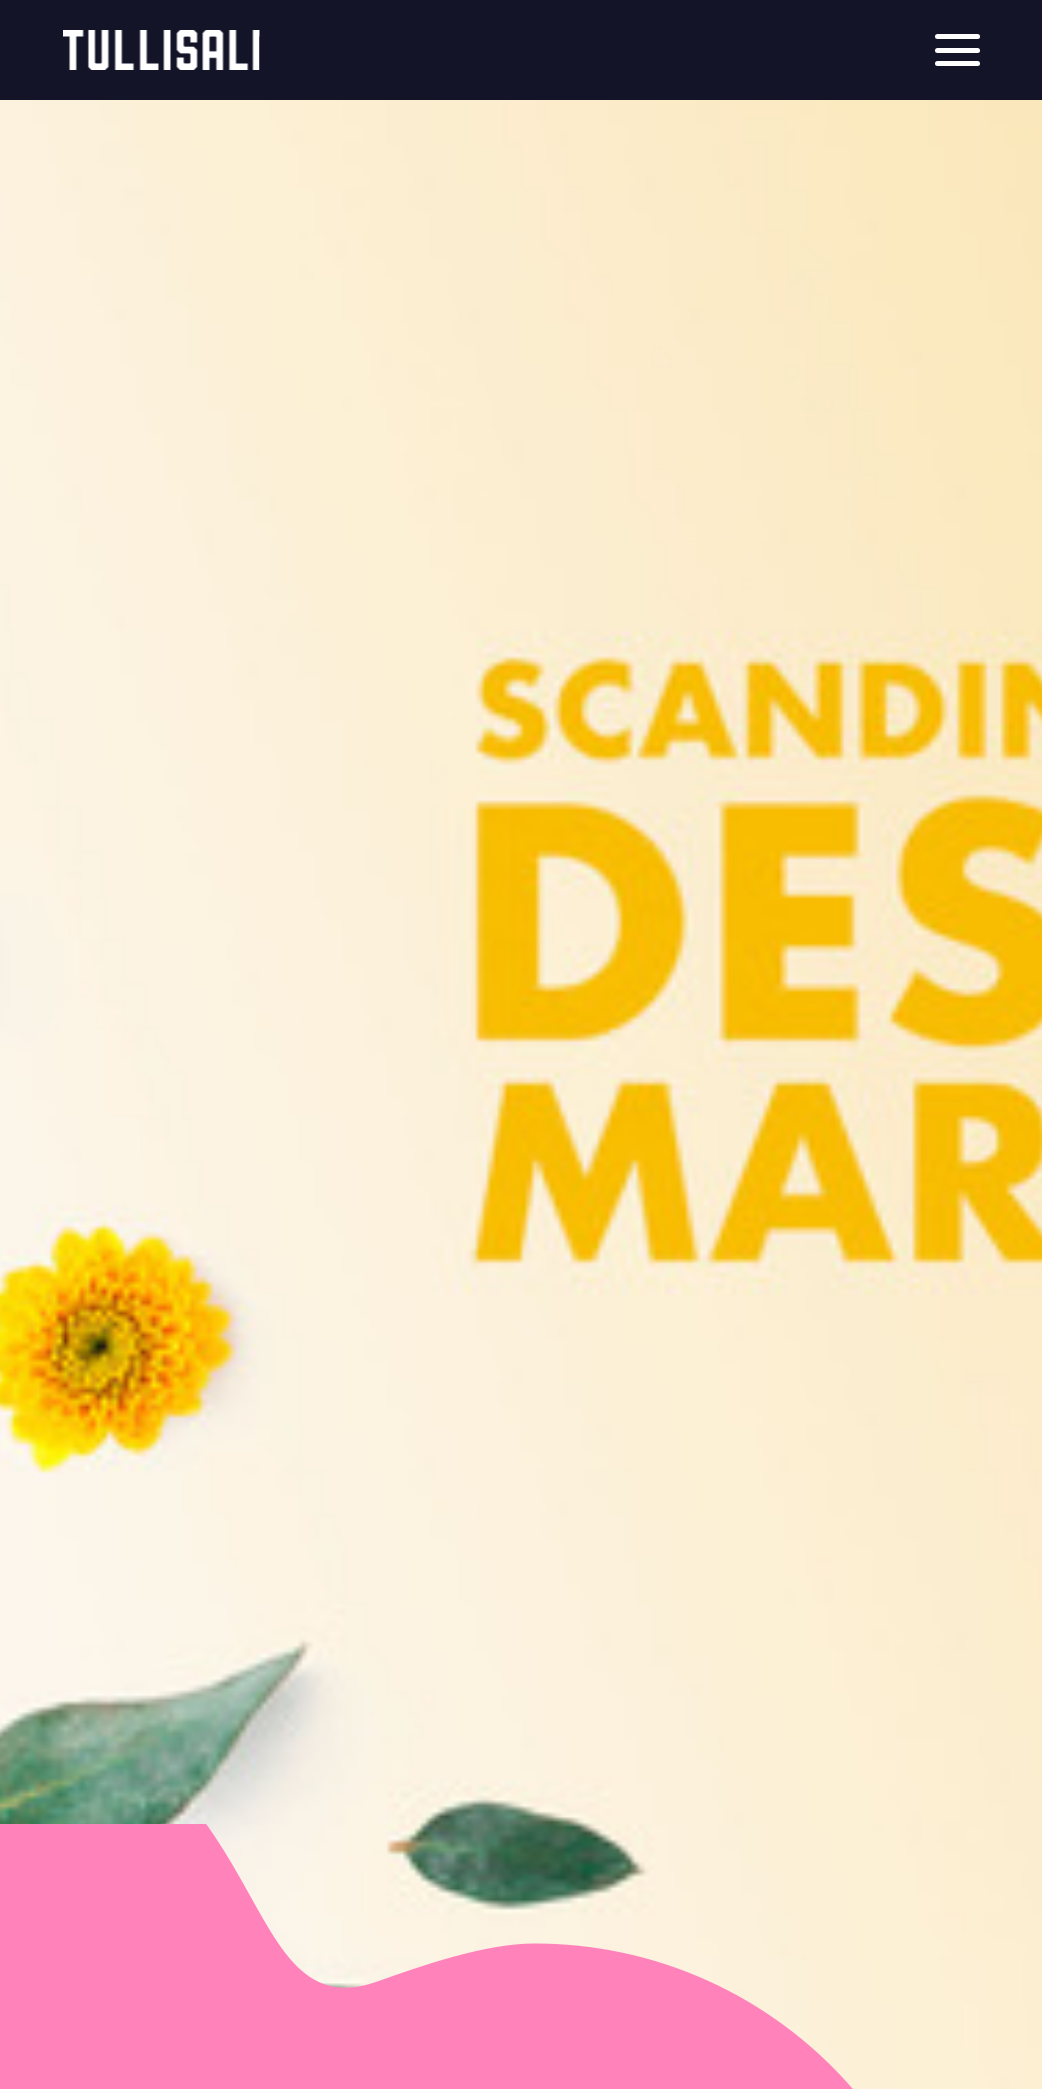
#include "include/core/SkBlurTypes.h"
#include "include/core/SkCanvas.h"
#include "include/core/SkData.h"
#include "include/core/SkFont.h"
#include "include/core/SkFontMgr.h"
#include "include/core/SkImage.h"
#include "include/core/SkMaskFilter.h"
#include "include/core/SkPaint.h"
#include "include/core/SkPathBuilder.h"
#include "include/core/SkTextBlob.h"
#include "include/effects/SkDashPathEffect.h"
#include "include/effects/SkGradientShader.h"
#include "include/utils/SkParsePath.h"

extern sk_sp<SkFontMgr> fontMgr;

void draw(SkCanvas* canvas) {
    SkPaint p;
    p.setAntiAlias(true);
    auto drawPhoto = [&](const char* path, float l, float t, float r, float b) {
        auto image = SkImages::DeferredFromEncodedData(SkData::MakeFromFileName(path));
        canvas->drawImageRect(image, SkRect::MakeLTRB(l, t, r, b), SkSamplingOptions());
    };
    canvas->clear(0xFF141428);
    drawPhoto("media/1.png", 63, 30, 260, 70);
    p.setColor(0xFFFFFFFF);
    canvas->drawRoundRect(SkRect::MakeLTRB(935, 34, 980, 39), 2.5f, 2.5f, p);
    canvas->drawRoundRect(SkRect::MakeLTRB(935, 48, 980, 53), 2.5f, 2.5f, p);
    canvas->drawRoundRect(SkRect::MakeLTRB(935, 61, 980, 66), 2.5f, 2.5f, p);
    drawPhoto("media/2.png", 0, 100, 1042, 2089);
    drawPhoto("media/3.png", 0, 1824, 853, 2089);
}
